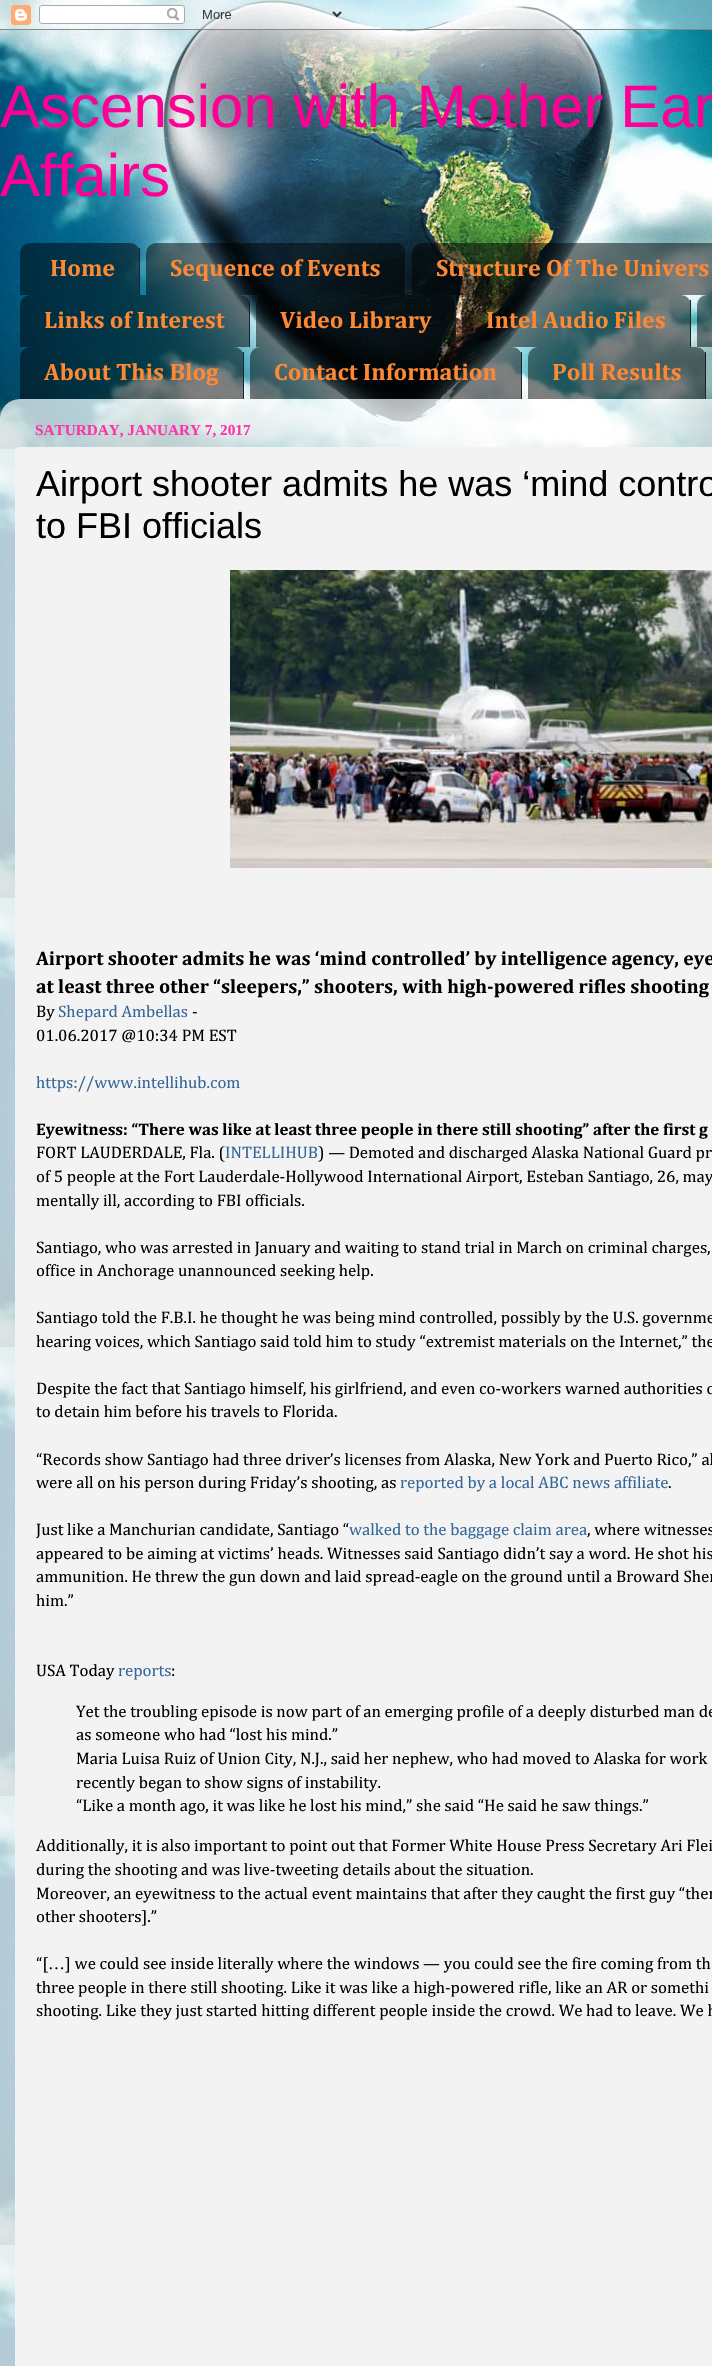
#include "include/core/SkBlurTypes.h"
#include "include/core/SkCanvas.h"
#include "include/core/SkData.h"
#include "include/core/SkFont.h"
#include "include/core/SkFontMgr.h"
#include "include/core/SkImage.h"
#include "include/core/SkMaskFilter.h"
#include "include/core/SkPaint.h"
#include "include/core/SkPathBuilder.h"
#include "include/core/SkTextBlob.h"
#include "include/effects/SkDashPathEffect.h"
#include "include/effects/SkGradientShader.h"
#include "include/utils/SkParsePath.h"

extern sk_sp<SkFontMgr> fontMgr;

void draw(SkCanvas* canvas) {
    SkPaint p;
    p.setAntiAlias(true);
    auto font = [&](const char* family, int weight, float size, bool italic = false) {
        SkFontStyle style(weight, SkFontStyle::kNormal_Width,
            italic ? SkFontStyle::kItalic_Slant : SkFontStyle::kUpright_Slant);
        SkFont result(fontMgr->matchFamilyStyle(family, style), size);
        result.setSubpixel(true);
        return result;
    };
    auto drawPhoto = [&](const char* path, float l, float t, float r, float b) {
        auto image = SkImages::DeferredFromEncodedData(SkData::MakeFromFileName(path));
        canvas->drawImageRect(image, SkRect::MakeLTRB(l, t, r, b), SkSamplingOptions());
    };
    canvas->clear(0xFFFFFFFF);
    drawPhoto("media/1.png", 0, 0, 712, 2366);
    drawPhoto("media/2.png", 0, 0, 712, 30);
    auto font1 = font("Liberation Sans", 400, 60);
    p.setColor(0xFFFF0094);
    canvas->drawString("Ascension with Mother Ear", 0, 127, font1, p);
    canvas->drawString("Affairs", 0, 196, font1, p);
    drawPhoto("media/3.png", 20, 243, 139, 295);
    p.setColor(0xFF1A222A);
    canvas->drawRect(SkRect::MakeLTRB(139, 248, 140, 295), p);
    auto font2 = font("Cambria", 700, 24);
    p.setColor(0xFFFF8832);
    canvas->drawString("Home", 50, 276, font2, p);
    drawPhoto("media/4.png", 146, 243, 405, 295);
    p.setColor(0xFF1A222A);
    canvas->drawRect(SkRect::MakeLTRB(405, 248, 406, 295), p);
    p.setColor(0xFFFF8832);
    canvas->drawString("Sequence of Events", 170, 276, font2, p);
    drawPhoto("media/5.png", 412, 243, 712, 295);
    canvas->drawString("Structure Of The Univers", 436, 276, font2, p);
    drawPhoto("media/6.png", 20, 295, 249, 347);
    p.setColor(0xFF1A222A);
    canvas->drawRect(SkRect::MakeLTRB(249, 300, 250, 347), p);
    p.setColor(0xFFFF8832);
    canvas->drawString("Links of Interest", 44, 328, font2, p);
    drawPhoto("media/7.png", 256, 295, 455, 347);
    p.setColor(0xFF1A222A);
    canvas->drawRect(SkRect::MakeLTRB(455, 300, 456, 347), p);
    p.setColor(0xFFFF8832);
    canvas->drawString("Video Library", 280, 328, font2, p);
    drawPhoto("media/8.png", 462, 295, 690, 347);
    p.setColor(0xFF1A222A);
    canvas->drawRect(SkRect::MakeLTRB(690, 300, 691, 347), p);
    p.setColor(0xFFFF8832);
    canvas->drawString("Intel Audio Files", 486, 328, font2, p);
    drawPhoto("media/9.png", 697, 295, 712, 347);
    drawPhoto("media/10.png", 20, 347, 243, 399);
    p.setColor(0xFF1A222A);
    canvas->drawRect(SkRect::MakeLTRB(243, 352, 244, 399), p);
    p.setColor(0xFFFF8832);
    canvas->drawString("About This Blog", 44, 380, font2, p);
    drawPhoto("media/11.png", 250, 347, 521, 399);
    p.setColor(0xFF1A222A);
    canvas->drawRect(SkRect::MakeLTRB(521, 352, 522, 399), p);
    p.setColor(0xFFFF8832);
    canvas->drawString("Contact Information", 274, 380, font2, p);
    drawPhoto("media/12.png", 528, 347, 705, 399);
    p.setColor(0xFF1A222A);
    canvas->drawRect(SkRect::MakeLTRB(705, 352, 706, 399), p);
    p.setColor(0xFFFF8832);
    canvas->drawString("Poll Results", 552, 380, font2, p);
    drawPhoto("media/13.png", 0, 399, 712, 2366);
    auto font3 = font("Liberation Serif", 700, 15.25f);
    p.setColor(0xFFFF32A9);
    canvas->drawString("SATURDAY, JANUARY 7, 2017", 35, 435, font3, p);
    p.setColor(0xFFF3F3F3);
    canvas->drawRoundRect(SkRect::MakeLTRB(15, 447, 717, 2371), 5, 5, p);
    auto font4 = font("Liberation Sans", 400, 36);
    p.setColor(0xFF000000);
    canvas->drawString("Airport shooter admits he was ‘mind contro", 36, 496, font4, p);
    canvas->drawString("to FBI officials", 36, 538, font4, p);
    drawPhoto("media/14.png", 230, 570, 712, 868);
    auto font5 = font("Cambria", 700, 19.7f);
    canvas->drawString("Airport shooter admits he was ‘mind controlled’ by intelligence agency, eye", 36, 965, font5, p);
    canvas->drawString("at least three other “sleepers,” shooters, with high-powered rifles shooting", 36, 993, font5, p);
    auto font6 = font("Cambria", 400, 16.85f);
    canvas->drawString("By", 36, 1017, font6, p);
    p.setColor(0xFF336699);
    canvas->drawString("Shepard Ambellas", 58, 1017, font6, p);
    p.setColor(0xFF000000);
    canvas->drawString("-", 192, 1017, font6, p);
    canvas->drawString("01.06.2017 @10:34 PM EST", 36, 1041, font6, p);
    p.setColor(0xFF336699);
    canvas->drawString("https://www.intellihub.com", 36, 1088, font6, p);
    auto font7 = font("Cambria", 700, 16.85f);
    p.setColor(0xFF000000);
    canvas->drawString("Eyewitness: “There was like at least three people in there still shooting” after the first g", 36, 1135, font7, p);
    canvas->drawString("FORT LAUDERDALE, Fla. (", 36, 1158, font6, p);
    p.setColor(0xFF336699);
    canvas->drawString("INTELLIHUB", 225, 1158, font6, p);
    p.setColor(0xFF000000);
    {
        const struct { const char* s; float x, y; } items[] = {
            {") — Demoted and discharged Alaska National Guard pr", 318, 1158},
            {"of 5 people at the Fort Lauderdale-Hollywood International Airport, Esteban Santiago, 26, may", 36, 1182},
            {"mentally ill, according to FBI officials.", 36, 1206},
            {"Santiago, who was arrested in January and waiting to stand trial in March on criminal charges,", 36, 1253},
            {"office in Anchorage unannounced seeking help.", 36, 1276},
            {"Santiago told the F.B.I. he thought he was being mind controlled, possibly by the U.S. governme", 36, 1323},
            {"hearing voices, which Santiago said told him to study “extremist materials on the Internet,” the", 36, 1347},
            {"Despite the fact that Santiago himself, his girlfriend, and even co-workers warned authorities o", 36, 1394},
            {"to detain him before his travels to Florida.", 36, 1417},
            {"“Records show Santiago had three driver’s licenses from Alaska, New York and Puerto Rico,” al", 36, 1465},
            {"were all on his person during Friday’s shooting, as", 36, 1488},
        };
        for (auto [s, x, y] : items) {
            canvas->drawString(s, x, y, font6, p);
        }
    }
    p.setColor(0xFF336699);
    canvas->drawString("reported by a local ABC news affiliate", 400, 1488, font6, p);
    p.setColor(0xFF000000);
    canvas->drawString(".", 668, 1488, font6, p);
    canvas->drawString("Just like a Manchurian candidate, Santiago “", 36, 1535, font6, p);
    p.setColor(0xFF336699);
    canvas->drawString("walked to the baggage claim area", 349, 1535, font6, p);
    p.setColor(0xFF000000);
    {
        const struct { const char* s; float x, y; } items[] = {
            {", where witnesses", 587, 1535},
            {"appeared to be aiming at victims’ heads. Witnesses said Santiago didn’t say a word. He shot his", 36, 1559},
            {"ammunition. He threw the gun down and laid spread-eagle on the ground until a Broward Sher", 36, 1582},
            {"him.”", 36, 1606},
            {"USA Today", 36, 1676},
        };
        for (auto [s, x, y] : items) {
            canvas->drawString(s, x, y, font6, p);
        }
    }
    p.setColor(0xFF336699);
    canvas->drawString("reports", 118, 1676, font6, p);
    p.setColor(0xFF000000);
    {
        const struct { const char* s; float x, y; } items[] = {
            {":", 171, 1676},
            {"Yet the troubling episode is now part of an emerging profile of a deeply disturbed man de", 76, 1717},
            {"as someone who had “lost his mind.”", 76, 1740},
            {"Maria Luisa Ruiz of Union City, N.J., said her nephew, who had moved to Alaska for work", 76, 1764},
            {"recently began to show signs of instability.", 76, 1788},
            {"“Like a month ago, it was like he lost his mind,” she said “He said he saw things.”", 76, 1811},
            {"Additionally, it is also important to point out that Former White House Press Secretary Ari Flei", 36, 1851},
            {"during the shooting and was live-tweeting details about the situation.", 36, 1875},
            {"Moreover, an eyewitness to the actual event maintains that after they caught the first guy “ther", 36, 1899},
            {"other shooters].”", 36, 1922},
            {"“[", 36, 1969},
        };
        for (auto [s, x, y] : items) {
            canvas->drawString(s, x, y, font6, p);
        }
    }
    auto font8 = font("Liberation Serif", 400, 16.85f);
    canvas->drawString("…", 48, 1969, font8, p);
    {
        const struct { const char* s; float x, y; } items[] = {
            {"] we could see inside literally where the windows — you could see the fire coming from th", 65, 1969},
            {"three people in there still shooting. Like it was like a high-powered rifle, like an AR or somethi", 36, 1993},
            {"shooting. Like they just started hitting different people inside the crowd. We had to leave. We h", 36, 2016},
        };
        for (auto [s, x, y] : items) {
            canvas->drawString(s, x, y, font6, p);
        }
    }
}
